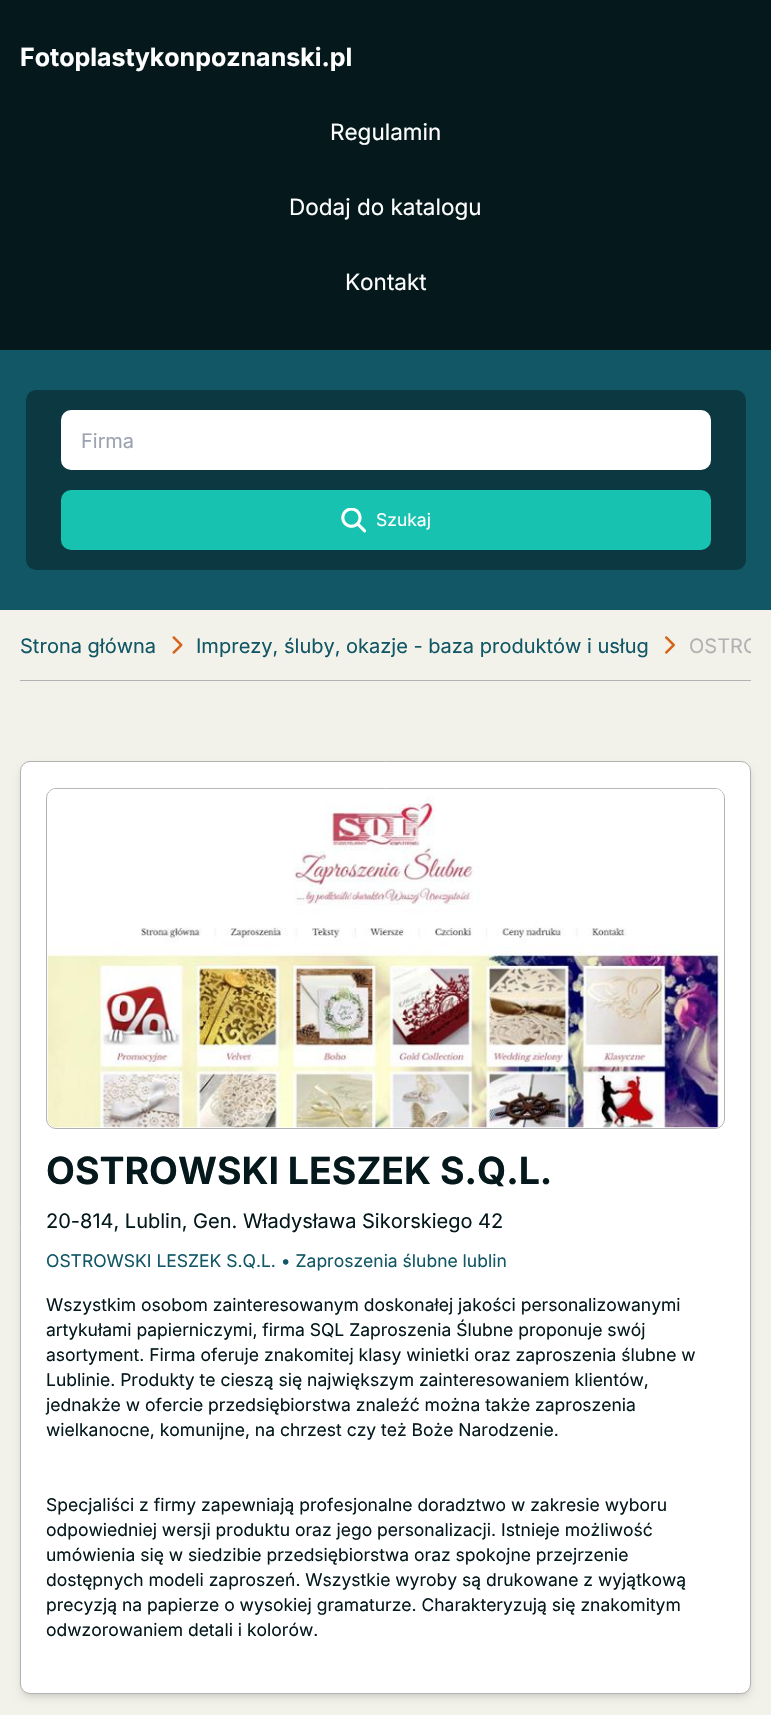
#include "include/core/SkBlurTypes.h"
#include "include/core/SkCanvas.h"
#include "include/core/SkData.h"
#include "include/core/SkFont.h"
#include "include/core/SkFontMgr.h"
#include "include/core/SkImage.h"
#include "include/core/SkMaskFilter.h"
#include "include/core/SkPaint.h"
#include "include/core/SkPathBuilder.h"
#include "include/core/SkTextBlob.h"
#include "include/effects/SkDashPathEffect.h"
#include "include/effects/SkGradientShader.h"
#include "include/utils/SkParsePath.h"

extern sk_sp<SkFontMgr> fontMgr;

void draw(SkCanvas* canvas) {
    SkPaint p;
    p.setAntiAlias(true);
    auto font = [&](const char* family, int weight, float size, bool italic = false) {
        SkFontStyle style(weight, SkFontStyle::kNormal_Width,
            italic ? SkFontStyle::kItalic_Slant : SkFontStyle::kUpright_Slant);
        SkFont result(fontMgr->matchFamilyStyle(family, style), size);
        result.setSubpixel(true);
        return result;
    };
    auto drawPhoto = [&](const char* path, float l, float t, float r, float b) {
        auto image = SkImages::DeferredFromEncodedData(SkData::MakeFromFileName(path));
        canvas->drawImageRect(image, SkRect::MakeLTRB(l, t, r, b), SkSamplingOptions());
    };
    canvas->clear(0xFFF3F2EA);
    p.setColor(0xFF05191D);
    canvas->drawRect(SkRect::MakeLTRB(0, 0, 771, 350), p);
    auto font1 = font("Inter", 700, 25);
    p.setColor(0xFFFFFFFF);
    canvas->drawString("Fotoplastykonpoznanski.pl", 20, 66, font1, p);
    auto font2 = font("Inter", 400, 22.5f);
    {
        const struct { const char* s; float x, y; } items[] = {
            {"Regulamin", 330, 140},
            {"Dodaj do katalogu", 289, 215},
            {"Kontakt", 345, 290},
        };
        for (auto [s, x, y] : items) {
            canvas->drawString(s, x, y, font2, p);
        }
    }
    p.setColor(0xFF115765);
    canvas->drawRect(SkRect::MakeLTRB(0, 350, 771, 610), p);
    p.setColor(0xFF0B3841);
    canvas->drawRoundRect(SkRect::MakeLTRB(26, 390, 746, 570), 10, 10, p);
    p.setColor(0xFFFFFFFF);
    canvas->drawRoundRect(SkRect::MakeLTRB(61, 410, 711, 470), 10, 10, p);
    auto font3 = font("Inter", 400, 20);
    p.setColor(0xFF9CA3AF);
    canvas->drawString("Firma", 81, 448, font3, p);
    p.setColor(0xFF17C2B1);
    canvas->drawRoundRect(SkRect::MakeLTRB(61, 490, 711, 550), 10, 10, p);
    drawPhoto("media/1.png", 341, 508, 366, 533);
    auto font4 = font("Inter", 400, 17.5f);
    p.setColor(0xFFFFFFFF);
    canvas->drawString("Szukaj", 376, 526, font4, p);
    p.setColor(0xFFB2B2B2);
    canvas->drawRect(SkRect::MakeLTRB(20, 680, 751, 681), p);
    p.setColor(0xFF115765);
    canvas->drawString("Strona główna", 20, 653, font3, p);
    drawPhoto("media/2.png", 172, 636, 183, 654);
    canvas->drawString("Imprezy, śluby, okazje - baza produktów i usług", 196, 653, font3, p);
    drawPhoto("media/3.png", 665, 636, 675, 654);
    canvas->save();
    canvas->clipRect(SkRect::MakeLTRB(20, 610, 751, 680));
    p.setColor(0xFFB2B2B2);
    canvas->drawString("OSTRO", 689, 653, font3, p);
    canvas->restore();
    p.setColor(0x1A000000);
    p.setMaskFilter(SkMaskFilter::MakeBlur(kNormal_SkBlurStyle, 2.5f));
    canvas->drawRoundRect(SkRect::MakeLTRB(23, 766, 749, 1694), 8, 8, p);
    p.setMaskFilter(nullptr);
    p.setMaskFilter(SkMaskFilter::MakeBlur(kNormal_SkBlurStyle, 4));
    canvas->drawRoundRect(SkRect::MakeLTRB(21, 768, 750, 1698), 9, 9, p);
    p.setMaskFilter(nullptr);
    p.setColor(0xFFFFFFFF);
    canvas->drawRoundRect(SkRect::MakeLTRB(20.5f, 761.5f, 750.5f, 1693.5f), 9.5f, 9.5f, p);
    p.setStyle(SkPaint::kStroke_Style);
    p.setStrokeWidth(1);
    p.setColor(0xFFB2B2B2);
    canvas->drawRoundRect(SkRect::MakeLTRB(20.5f, 761.5f, 750.5f, 1693.5f), 9.5f, 9.5f, p);
    canvas->drawRoundRect(SkRect::MakeLTRB(46.5f, 788.5f, 724.5f, 1128.5f), 9.5f, 9.5f, p);
    drawPhoto("media/4.png", 47, 788, 724, 1128);
    auto font5 = font("Inter", 700, 37.5f);
    p.setStyle(SkPaint::kFill_Style);
    p.setColor(0xFF05191D);
    canvas->drawString("OSTROWSKI LESZEK S.Q.L.", 46, 1184, font5, p);
    canvas->drawString("20-814, Lublin, Gen. Władysława Sikorskiego 42", 46, 1228, font3, p);
    p.setColor(0xFF115765);
    canvas->drawString("OSTROWSKI LESZEK S.Q.L. • Zaproszenia ślubne lublin", 46, 1267, font4, p);
    p.setColor(0xFF05191D);
    {
        const struct { const char* s; float x, y; } items[] = {
            {"Wszystkim osobom zainteresowanym doskonałej jakości personalizowanymi", 46, 1311},
            {"artykułami papierniczymi, firma SQL Zaproszenia Ślubne proponuje swój", 46, 1336},
            {"asortyment. Firma oferuje znakomitej klasy winietki oraz zaproszenia ślubne w", 46, 1361},
            {"Lublinie. Produkty te cieszą się największym zainteresowaniem klientów,", 46, 1386},
            {"jednakże w ofercie przedsiębiorstwa znaleźć można także zaproszenia", 46, 1411},
            {"wielkanocne, komunijne, na chrzest czy też Boże Narodzenie.", 46, 1436},
            {"Specjaliści z firmy zapewniają profesjonalne doradztwo w zakresie wyboru", 46, 1511},
            {"odpowiedniej wersji produktu oraz jego personalizacji. Istnieje możliwość", 46, 1536},
            {"umówienia się w siedzibie przedsiębiorstwa oraz spokojne przejrzenie", 46, 1561},
            {"dostępnych modeli zaproszeń. Wszystkie wyroby są drukowane z wyjątkową", 46, 1586},
            {"precyzją na papierze o wysokiej gramaturze. Charakteryzują się znakomitym", 46, 1611},
            {"odwzorowaniem detali i kolorów.", 46, 1636},
        };
        for (auto [s, x, y] : items) {
            canvas->drawString(s, x, y, font4, p);
        }
    }
}
